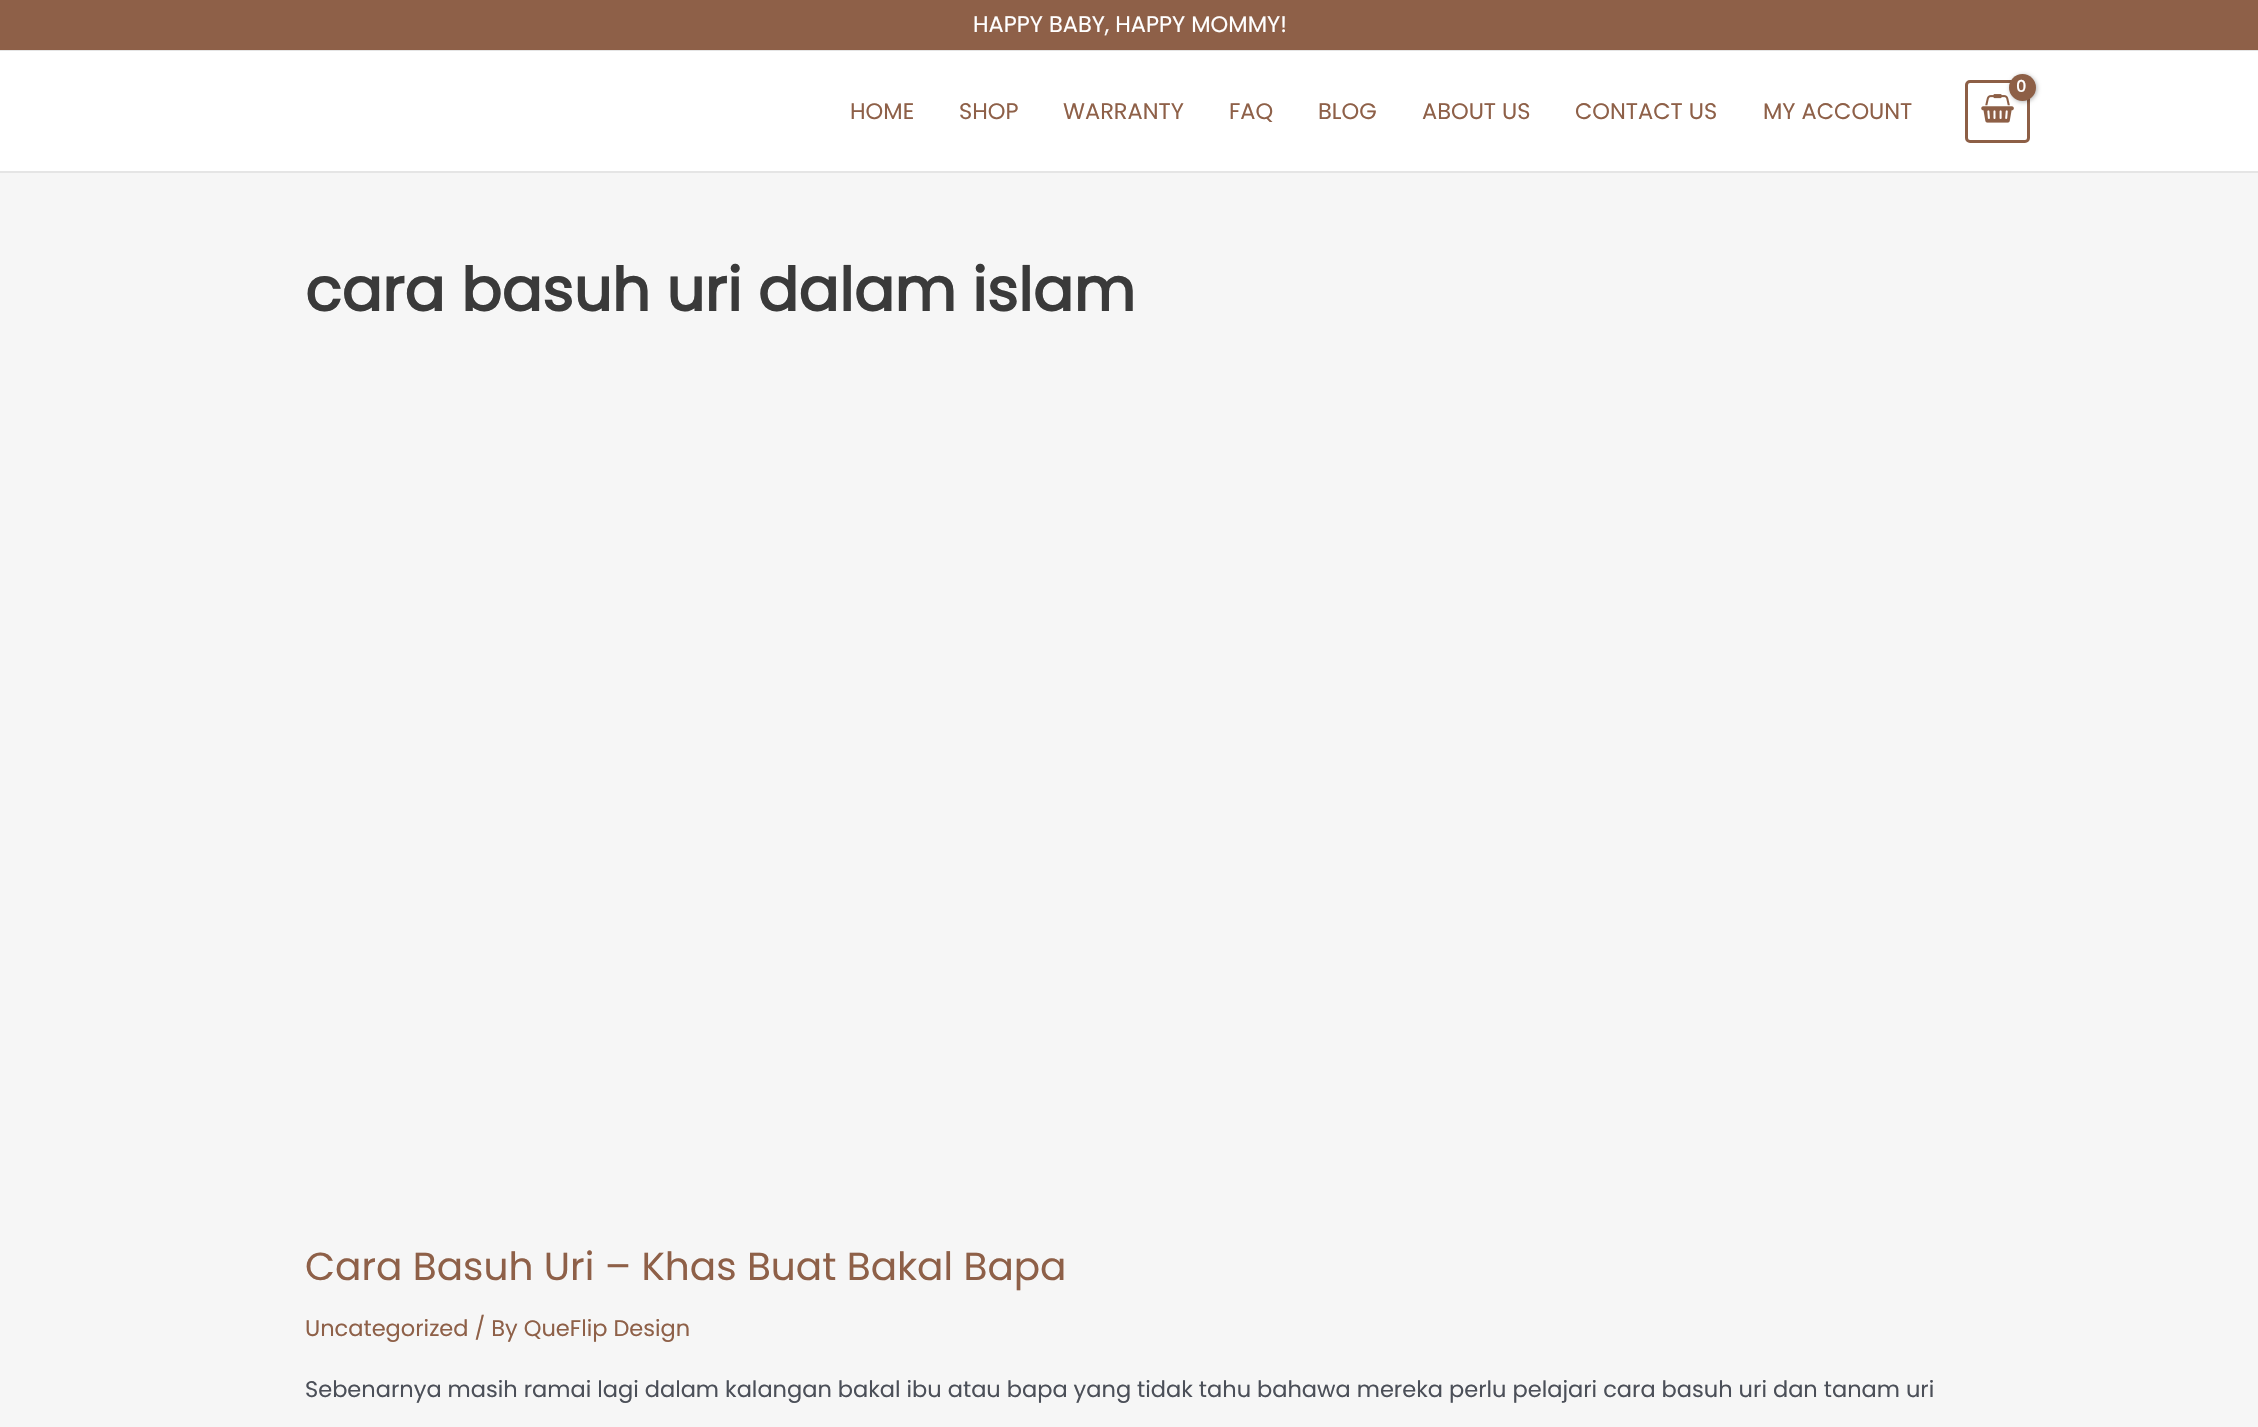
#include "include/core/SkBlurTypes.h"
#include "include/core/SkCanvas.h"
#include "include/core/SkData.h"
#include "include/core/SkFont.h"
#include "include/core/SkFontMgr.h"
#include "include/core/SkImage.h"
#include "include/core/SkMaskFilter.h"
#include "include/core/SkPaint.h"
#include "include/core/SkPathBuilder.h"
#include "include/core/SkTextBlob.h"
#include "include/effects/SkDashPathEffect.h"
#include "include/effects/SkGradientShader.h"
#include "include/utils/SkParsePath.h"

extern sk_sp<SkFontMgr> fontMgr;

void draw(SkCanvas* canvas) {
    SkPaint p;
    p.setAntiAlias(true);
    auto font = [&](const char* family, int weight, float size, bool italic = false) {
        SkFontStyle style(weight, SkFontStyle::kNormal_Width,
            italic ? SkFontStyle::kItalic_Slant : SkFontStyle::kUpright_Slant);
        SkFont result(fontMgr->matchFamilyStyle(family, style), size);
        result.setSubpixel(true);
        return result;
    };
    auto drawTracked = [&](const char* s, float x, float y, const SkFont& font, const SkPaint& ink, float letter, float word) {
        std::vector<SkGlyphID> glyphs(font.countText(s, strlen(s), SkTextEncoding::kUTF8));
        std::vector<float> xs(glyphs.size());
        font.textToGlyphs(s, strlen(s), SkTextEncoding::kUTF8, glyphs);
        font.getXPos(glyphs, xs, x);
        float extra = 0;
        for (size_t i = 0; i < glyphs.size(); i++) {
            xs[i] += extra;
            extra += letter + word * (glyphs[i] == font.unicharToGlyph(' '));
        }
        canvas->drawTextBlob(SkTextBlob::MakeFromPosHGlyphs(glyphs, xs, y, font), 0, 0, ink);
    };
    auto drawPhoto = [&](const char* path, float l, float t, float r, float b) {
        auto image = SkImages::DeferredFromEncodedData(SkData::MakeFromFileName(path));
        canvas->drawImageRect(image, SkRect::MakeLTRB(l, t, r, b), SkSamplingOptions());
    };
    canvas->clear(0xFFF6F6F6);
    p.setColor(0xFF8E6048);
    canvas->drawRect(SkRect::MakeLTRB(0, 0, 2258, 50), p);
    p.setColor(0xFFE5E5E5);
    canvas->drawRect(SkRect::MakeLTRB(0, 50, 2258, 51), p);
    auto font1 = font("Poppins", 400, 22.5f);
    p.setColor(0xFFFFFFFF);
    canvas->drawString("HAPPY BABY, HAPPY MOMMY!", 973, 32, font1, p);
    canvas->drawRect(SkRect::MakeLTRB(0, 51, 2258, 171), p);
    p.setColor(0xFFE5E5E5);
    canvas->drawRect(SkRect::MakeLTRB(0, 171, 2258, 173), p);
    p.setStyle(SkPaint::kStroke_Style);
    p.setStrokeWidth(3);
    p.setColor(0xFF8D5F46);
    canvas->drawRoundRect(SkRect::MakeLTRB(1966.5f, 81.5f, 2028.5f, 141.5f), 3.5f, 3.5f, p);
    drawPhoto("media/1.png", 1981, 94, 2014, 123);
    p.setStyle(SkPaint::kFill_Style);
    p.setColor(0x4D000000);
    p.setMaskFilter(SkMaskFilter::MakeBlur(kNormal_SkBlurStyle, 2));
    canvas->drawRoundRect(SkRect::MakeLTRB(2010, 75, 2037, 102), 13.5f, 13.5f, p);
    p.setMaskFilter(nullptr);
    p.setColor(0xFF8D5F46);
    canvas->drawCircle(2022.5f, 87.5f, 13.5f, p);
    auto font2 = font("Poppins", 700, 16);
    p.setColor(0xFFFFFFFF);
    drawTracked("0", 2016, 92, font2, p, -1, 0);
    p.setColor(0xFF8E6048);
    {
        const struct { const char* s; float x, y; } items[] = {
            {"HOME", 850, 119},
            {"SHOP", 959, 119},
            {"WARRANTY", 1063, 119},
            {"FAQ", 1229, 119},
            {"BLOG", 1318, 119},
            {"ABOUT US", 1422, 119},
            {"CONTACT US", 1575, 119},
            {"MY ACCOUNT", 1763, 119},
        };
        for (auto [s, x, y] : items) {
            canvas->drawString(s, x, y, font1, p);
        }
    }
    auto font3 = font("Poppins", 700, 60);
    p.setColor(0xFF3A3A3A);
    canvas->drawString("cara basuh uri dalam islam", 305, 311, font3, p);
    auto font4 = font("Poppins", 400, 39);
    p.setColor(0xFF8E6048);
    canvas->drawString("Cara Basuh Uri – Khas Buat Bakal Bapa", 305, 1280, font4, p);
    canvas->drawString("Uncategorized / By QueFlip Design", 305, 1336, font1, p);
    p.setColor(0xFF4B4F58);
    canvas->drawString("Sebenarnya masih ramai lagi dalam kalangan bakal ibu atau bapa yang tidak tahu bahawa mereka perlu pelajari cara basuh uri dan tanam uri", 305, 1397, font1, p);
}
